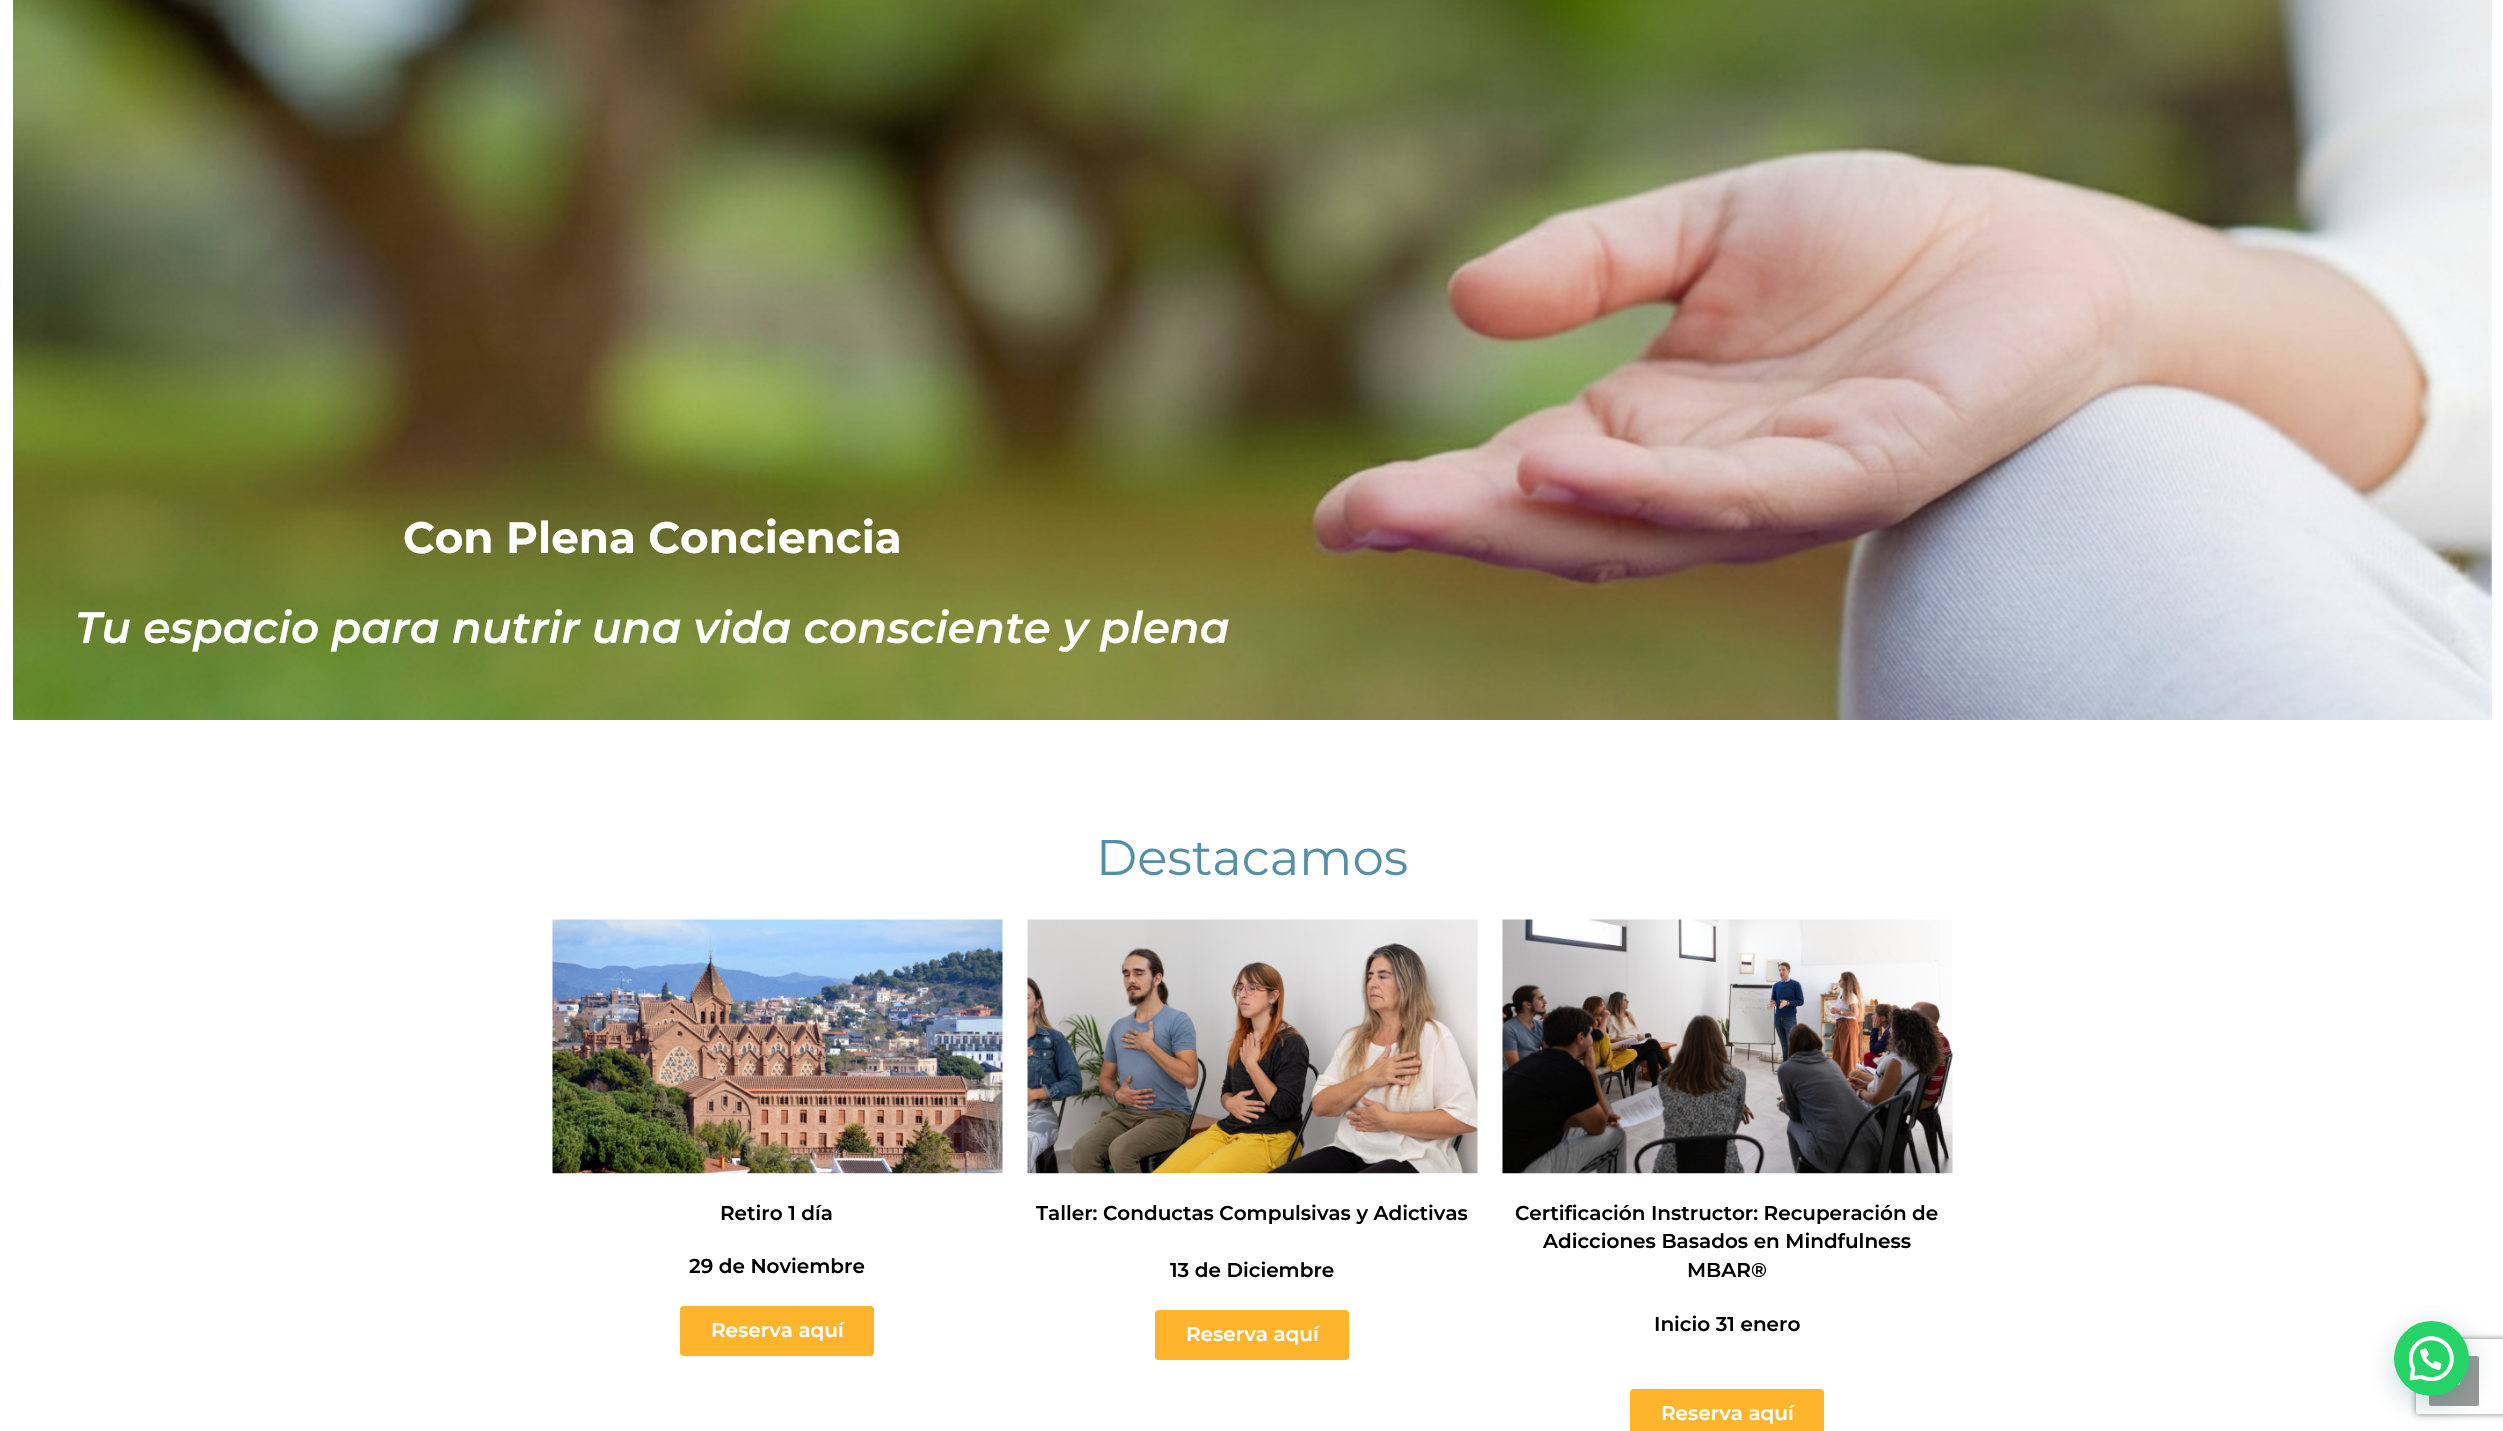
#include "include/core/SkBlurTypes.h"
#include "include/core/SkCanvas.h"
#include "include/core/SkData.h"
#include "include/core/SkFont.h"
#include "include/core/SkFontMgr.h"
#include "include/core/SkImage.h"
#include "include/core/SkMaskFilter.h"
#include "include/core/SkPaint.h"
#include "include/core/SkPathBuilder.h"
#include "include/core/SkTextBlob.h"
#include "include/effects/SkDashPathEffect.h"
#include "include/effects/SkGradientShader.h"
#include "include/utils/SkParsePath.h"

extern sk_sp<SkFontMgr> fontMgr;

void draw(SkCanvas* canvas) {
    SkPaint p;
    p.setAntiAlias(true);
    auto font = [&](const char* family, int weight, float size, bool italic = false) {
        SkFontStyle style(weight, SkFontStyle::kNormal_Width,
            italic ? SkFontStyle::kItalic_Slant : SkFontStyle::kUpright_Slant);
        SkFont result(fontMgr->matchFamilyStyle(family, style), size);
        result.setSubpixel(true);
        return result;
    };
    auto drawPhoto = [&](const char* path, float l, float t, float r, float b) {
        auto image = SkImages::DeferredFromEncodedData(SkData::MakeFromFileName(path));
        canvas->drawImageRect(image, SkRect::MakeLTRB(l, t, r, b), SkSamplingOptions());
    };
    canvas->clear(0xFFFFFFFF);
    drawPhoto("media/1.png", 13, 0, 2492, 720);
    auto font1 = font("Montserrat", 700, 43.75f);
    p.setColor(0xFFFFFFFF);
    canvas->drawString("Con Plena Conciencia", 403, 553, font1, p);
    auto font2 = font("Montserrat", 600, 43.75f, true);
    canvas->drawString("Tu espacio para nutrir una vida consciente y plena", 75, 643, font2, p);
    auto font3 = font("Montserrat", 400, 50);
    p.setColor(0xFF548FA8);
    canvas->drawString("Destacamos", 1096, 875, font3, p);
    drawPhoto("media/2.png", 552, 919, 1003, 1174);
    auto font4 = font("Montserrat", 600, 20);
    p.setColor(0xFF000000);
    canvas->drawString("Retiro 1 día", 720, 1220, font4, p);
    canvas->drawString("29 de Noviembre", 689, 1273, font4, p);
    p.setColor(0xFFFFB42E);
    canvas->drawRoundRect(SkRect::MakeLTRB(680, 1306, 874, 1356), 4, 4, p);
    p.setColor(0xFFFFFFFF);
    canvas->drawString("Reserva aquí", 711, 1337, font4, p);
    drawPhoto("media/3.png", 1027, 919, 1478, 1174);
    p.setColor(0xFF000000);
    canvas->drawString("Taller: Conductas Compulsivas y Adictivas", 1036, 1220, font4, p);
    canvas->drawString("13 de Diciembre", 1170, 1277, font4, p);
    p.setColor(0xFFFFB42E);
    canvas->drawRoundRect(SkRect::MakeLTRB(1155, 1310, 1349, 1360), 4, 4, p);
    p.setColor(0xFFFFFFFF);
    canvas->drawString("Reserva aquí", 1186, 1341, font4, p);
    drawPhoto("media/4.png", 1502, 919, 1953, 1174);
    p.setColor(0xFF000000);
    {
        const struct { const char* s; float x, y; } items[] = {
            {"Certificación Instructor: Recuperación de", 1515, 1220},
            {"Adicciones Basados en Mindfulness", 1543, 1248},
            {"MBAR®", 1687, 1277},
            {"Inicio 31 enero", 1654, 1331},
        };
        for (auto [s, x, y] : items) {
            canvas->drawString(s, x, y, font4, p);
        }
    }
    p.setColor(0xFFFFB42E);
    canvas->drawRoundRect(SkRect::MakeLTRB(1630, 1389, 1824, 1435), 4, 4, p);
    p.setColor(0xFFFFFFFF);
    canvas->drawString("Reserva aquí", 1661, 1420, font4, p);
    canvas->save();
    canvas->clipPath(SkPathBuilder(SkPathFillType::kEvenOdd).moveTo(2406, 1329).lineTo(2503, 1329).lineTo(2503, 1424).lineTo(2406, 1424).close().moveTo(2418.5f, 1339).lineTo(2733.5f, 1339).cubicTo(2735, 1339, 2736, 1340, 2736, 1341.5f).lineTo(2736, 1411.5f).cubicTo(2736, 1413, 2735, 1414, 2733.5f, 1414).lineTo(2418.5f, 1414).cubicTo(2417, 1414, 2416, 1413, 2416, 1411.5f).lineTo(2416, 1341.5f).cubicTo(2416, 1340, 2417, 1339, 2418.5f, 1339).close().detach(), true);
    p.setColor(0xFF808080);
    p.setMaskFilter(SkMaskFilter::MakeBlur(kNormal_SkBlurStyle, 3));
    canvas->drawRoundRect(SkRect::MakeLTRB(2416, 1339, 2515, 1414), 2.5f, 2.5f, p);
    p.setMaskFilter(nullptr);
    canvas->restore();
    p.setColor(0xFF999999);
    canvas->drawRoundRect(SkRect::MakeLTRB(2429, 1356, 2479, 1406), 2.5f, 2.5f, p);
    drawPhoto("media/6.png", 2458, 1382, 2461, 1385);
    p.setColor(0x3D075E54);
    p.setMaskFilter(SkMaskFilter::MakeBlur(kNormal_SkBlurStyle, 15));
    canvas->drawRoundRect(SkRect::MakeLTRB(2395, 1329, 2470, 1404), 37.5f, 37.5f, p);
    p.setMaskFilter(nullptr);
    p.setColor(0xFF25D366);
    canvas->drawCircle(2431.5f, 1358.5f, 37.5f, p);
    drawPhoto("media/5.png", 2409, 1336, 2454, 1381);
}
